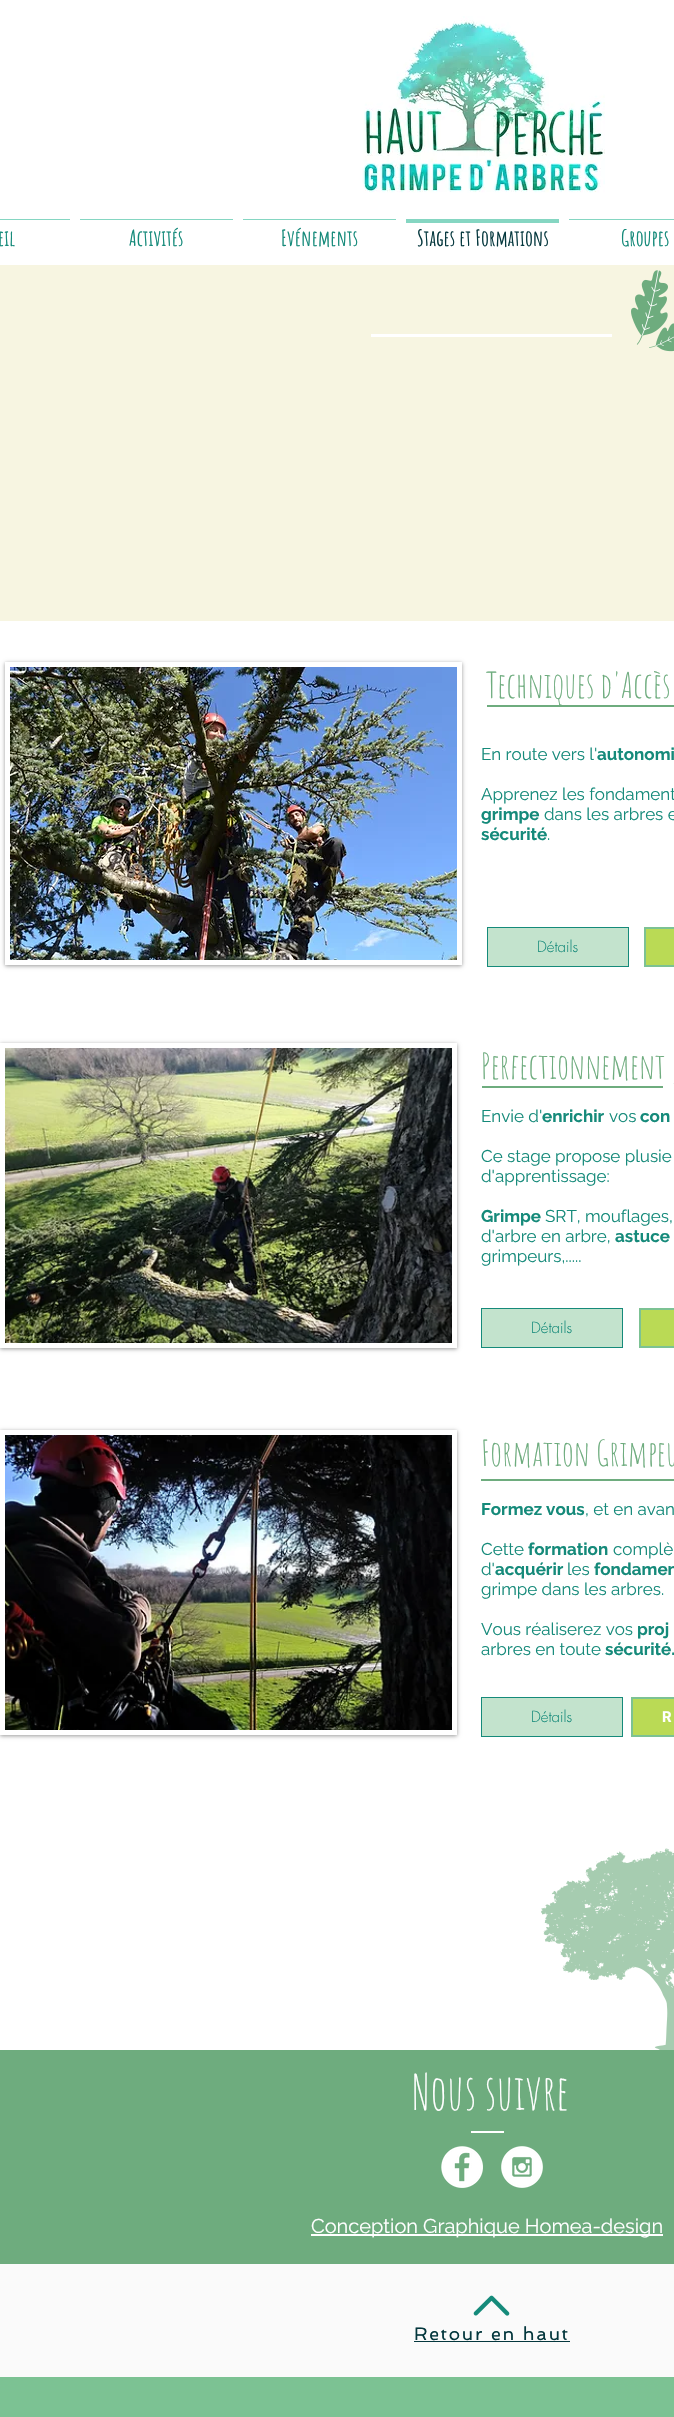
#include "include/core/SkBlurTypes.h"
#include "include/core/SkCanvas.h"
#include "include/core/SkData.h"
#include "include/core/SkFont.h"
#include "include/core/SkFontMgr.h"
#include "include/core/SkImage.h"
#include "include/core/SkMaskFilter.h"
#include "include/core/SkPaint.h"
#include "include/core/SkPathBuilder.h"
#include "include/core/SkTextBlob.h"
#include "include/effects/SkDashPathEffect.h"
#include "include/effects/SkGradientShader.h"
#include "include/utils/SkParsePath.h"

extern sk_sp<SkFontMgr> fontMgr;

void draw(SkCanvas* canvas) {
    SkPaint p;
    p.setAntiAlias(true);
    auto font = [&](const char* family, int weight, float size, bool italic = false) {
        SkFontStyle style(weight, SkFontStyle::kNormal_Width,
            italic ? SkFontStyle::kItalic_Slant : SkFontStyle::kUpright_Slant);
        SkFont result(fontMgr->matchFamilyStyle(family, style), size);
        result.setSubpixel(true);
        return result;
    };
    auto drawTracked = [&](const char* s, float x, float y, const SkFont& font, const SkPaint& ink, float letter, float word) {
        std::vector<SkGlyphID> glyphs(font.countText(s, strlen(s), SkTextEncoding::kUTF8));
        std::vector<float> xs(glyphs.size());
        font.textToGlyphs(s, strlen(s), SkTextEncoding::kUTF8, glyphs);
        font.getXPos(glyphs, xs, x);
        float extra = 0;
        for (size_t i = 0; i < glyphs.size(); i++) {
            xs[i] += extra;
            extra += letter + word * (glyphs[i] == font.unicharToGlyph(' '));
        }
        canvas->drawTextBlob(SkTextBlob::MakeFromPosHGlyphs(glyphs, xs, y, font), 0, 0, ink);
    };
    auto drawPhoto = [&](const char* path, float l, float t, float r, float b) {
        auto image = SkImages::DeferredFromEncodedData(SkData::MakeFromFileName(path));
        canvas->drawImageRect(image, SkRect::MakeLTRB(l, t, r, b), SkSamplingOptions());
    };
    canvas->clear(0xFFFFFFFF);
    drawPhoto("media/1.png", 362, 16, 605, 193);
    p.setColor(0xFF85D6C2);
    canvas->drawRect(SkRect::MakeLTRB(0, 219, 70, 220), p);
    auto font1 = font("Amatic SC", 700, 22);
    p.setColor(0xFF158A7A);
    canvas->drawString("eil", -2, 246, font1, p);
    p.setColor(0xFF85D6C2);
    canvas->drawRect(SkRect::MakeLTRB(80, 219, 233, 220), p);
    p.setColor(0xFF158A7A);
    canvas->drawString("Activités", 129, 246, font1, p);
    p.setColor(0xFF85D6C2);
    canvas->drawRect(SkRect::MakeLTRB(243, 219, 396, 220), p);
    p.setColor(0xFF158A7A);
    canvas->drawString("Evénements", 281, 246, font1, p);
    p.setColor(0xFF85D6C2);
    canvas->drawRect(SkRect::MakeLTRB(406, 219, 559, 223), p);
    p.setColor(0xFF04373D);
    canvas->drawString("Stages et Formations", 417, 246, font1, p);
    p.setColor(0xFF85D6C2);
    canvas->drawRect(SkRect::MakeLTRB(569, 219, 674, 220), p);
    p.setColor(0xFF158A7A);
    canvas->drawString("Groupes", 621, 246, font1, p);
    p.setColor(0xFFF7F5E1);
    canvas->drawRect(SkRect::MakeLTRB(0, 265, 674, 621), p);
    drawPhoto("media/2.png", 631, 270, 668, 345);
    p.setColor(0xFFFFFFFF);
    canvas->drawRect(SkRect::MakeLTRB(371, 334, 612, 337), p);
    drawPhoto("media/3.png", 649, 323, 674, 352);
    canvas->save();
    canvas->clipPath(SkPathBuilder(SkPathFillType::kEvenOdd).moveTo(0, 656).lineTo(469, 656).lineTo(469, 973).lineTo(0, 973).close().moveTo(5, 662).lineTo(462, 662).lineTo(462, 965).lineTo(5, 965).close().detach(), true);
    p.setColor(0x66000000);
    p.setMaskFilter(SkMaskFilter::MakeBlur(kNormal_SkBlurStyle, 2));
    canvas->drawRect(SkRect::MakeLTRB(5, 663, 462, 966), p);
    p.setMaskFilter(nullptr);
    canvas->restore();
    drawPhoto("media/4.png", 10, 667, 457, 960);
    auto font2 = font("Amatic SC", 400, 35);
    p.setColor(0xFF6EAC7E);
    canvas->drawString("Techniques d'Accès", 486, 698, font2, p);
    canvas->drawRect(SkRect::MakeLTRB(487, 705, 674, 707), p);
    p.setColor(0xFFC3E3CD);
    canvas->drawRect(SkRect::MakeLTRB(487.5f, 927.5f, 628.5f, 966.5f), p);
    p.setStyle(SkPaint::kStroke_Style);
    p.setStrokeWidth(1);
    p.setColor(0xFF158A7A);
    canvas->drawRect(SkRect::MakeLTRB(487.5f, 927.5f, 628.5f, 966.5f), p);
    auto font3 = font("futura", 300, 15);
    p.setStyle(SkPaint::kFill_Style);
    canvas->drawString("Détails", 537, 952, font3, p);
    p.setColor(0xFFBADA55);
    canvas->drawRect(SkRect::MakeLTRB(645, 928, 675, 966), p);
    p.setStyle(SkPaint::kStroke_Style);
    p.setStrokeWidth(2);
    p.setColor(0xFF7CC293);
    canvas->drawRect(SkRect::MakeLTRB(645, 928, 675, 966), p);
    auto font4 = font("Raleway", 400, 17);
    p.setStyle(SkPaint::kFill_Style);
    p.setColor(0xFF158A7A);
    canvas->drawString("En route vers l'", 481, 760, font4, p);
    auto font5 = font("Raleway", 700, 17);
    canvas->drawString("autonomi", 597, 760, font5, p);
    canvas->drawString("Apprenez les fondament", 481, 800, font4, p);
    canvas->drawString("grimpe", 481, 820, font5, p);
    canvas->drawString("dans les arbres e", 544, 820, font4, p);
    canvas->drawString("sécurité", 481, 840, font5, p);
    canvas->drawString(".", 547, 840, font4, p);
    canvas->save();
    canvas->clipPath(SkPathBuilder(SkPathFillType::kEvenOdd).moveTo(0, 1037).lineTo(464, 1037).lineTo(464, 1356).lineTo(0, 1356).close().moveTo(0, 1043).lineTo(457, 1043).lineTo(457, 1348).lineTo(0, 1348).close().detach(), true);
    p.setColor(0x66000000);
    p.setMaskFilter(SkMaskFilter::MakeBlur(kNormal_SkBlurStyle, 2));
    canvas->drawRect(SkRect::MakeLTRB(0, 1044, 457, 1349), p);
    p.setMaskFilter(nullptr);
    canvas->restore();
    drawPhoto("media/5.png", 5, 1048, 452, 1343);
    p.setColor(0xFF6EAC7E);
    canvas->drawString("Perfectionnement", 481, 1079, font2, p);
    p.setColor(0xFFEFF6F1);
    canvas->drawRect(SkRect::MakeLTRB(673, 1083, 674, 1084), p);
    p.setColor(0xFF6EAC7E);
    canvas->drawRect(SkRect::MakeLTRB(482, 1086, 663, 1088), p);
    p.setColor(0xFF158A7A);
    canvas->drawString("Envie d'", 481, 1122, font4, p);
    canvas->drawString("enrichir", 542, 1122, font5, p);
    canvas->drawString("vos", 609, 1122, font4, p);
    canvas->drawString("con", 640, 1122, font5, p);
    canvas->drawString("Ce stage propose plusie", 481, 1162, font4, p);
    canvas->drawString("d'apprentissage:", 481, 1182, font4, p);
    canvas->drawString("Grimpe", 481, 1222, font5, p);
    canvas->drawString("SRT, mouflages,", 545, 1222, font4, p);
    canvas->drawString("d'arbre en arbre,", 481, 1242, font4, p);
    canvas->drawString("astuce", 615, 1242, font5, p);
    canvas->drawString("grimpeurs,.....", 481, 1262, font4, p);
    p.setColor(0xFFC3E3CD);
    canvas->drawRect(SkRect::MakeLTRB(481.5f, 1308.5f, 622.5f, 1347.5f), p);
    p.setStyle(SkPaint::kStroke_Style);
    p.setStrokeWidth(1);
    p.setColor(0xFF158A7A);
    canvas->drawRect(SkRect::MakeLTRB(481.5f, 1308.5f, 622.5f, 1347.5f), p);
    p.setStyle(SkPaint::kFill_Style);
    canvas->drawString("Détails", 531, 1333, font3, p);
    p.setColor(0xFFBADA55);
    canvas->drawRect(SkRect::MakeLTRB(640, 1309, 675, 1347), p);
    p.setStyle(SkPaint::kStroke_Style);
    p.setStrokeWidth(2);
    p.setColor(0xFF7CC293);
    canvas->drawRect(SkRect::MakeLTRB(640, 1309, 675, 1347), p);
    canvas->save();
    canvas->clipPath(SkPathBuilder(SkPathFillType::kEvenOdd).moveTo(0, 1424).lineTo(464, 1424).lineTo(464, 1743).lineTo(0, 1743).close().moveTo(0, 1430).lineTo(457, 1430).lineTo(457, 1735).lineTo(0, 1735).close().detach(), true);
    p.setStyle(SkPaint::kFill_Style);
    p.setColor(0x66000000);
    p.setMaskFilter(SkMaskFilter::MakeBlur(kNormal_SkBlurStyle, 2));
    canvas->drawRect(SkRect::MakeLTRB(0, 1431, 457, 1736), p);
    p.setMaskFilter(nullptr);
    canvas->restore();
    drawPhoto("media/6.png", 5, 1435, 452, 1730);
    p.setColor(0xFF6EAC7E);
    canvas->drawString("Formation Grimpeu", 481, 1466, font2, p);
    canvas->drawRect(SkRect::MakeLTRB(481, 1479, 674, 1481), p);
    p.setColor(0xFF158A7A);
    canvas->drawString("Formez vous", 481, 1515, font5, p);
    canvas->drawString(", et en avan", 585, 1515, font4, p);
    canvas->drawString("Cette", 481, 1555, font4, p);
    canvas->drawString("formation", 528, 1555, font5, p);
    canvas->drawString("complè", 613, 1555, font4, p);
    canvas->drawString("d'", 481, 1575, font4, p);
    canvas->drawString("acquérir", 495, 1575, font5, p);
    canvas->drawString("les", 567, 1575, font4, p);
    canvas->drawString("fondamen", 594, 1575, font5, p);
    canvas->drawString("grimpe dans les arbres.", 481, 1595, font4, p);
    canvas->drawString("Vous réaliserez vos", 481, 1635, font4, p);
    canvas->drawString("proj", 637, 1635, font5, p);
    canvas->drawString("arbres en toute", 481, 1655, font4, p);
    canvas->drawString("sécurité.", 605, 1655, font5, p);
    p.setColor(0xFFC3E3CD);
    canvas->drawRect(SkRect::MakeLTRB(481.5f, 1697.5f, 622.5f, 1736.5f), p);
    p.setStyle(SkPaint::kStroke_Style);
    p.setStrokeWidth(1);
    p.setColor(0xFF158A7A);
    canvas->drawRect(SkRect::MakeLTRB(481.5f, 1697.5f, 622.5f, 1736.5f), p);
    p.setStyle(SkPaint::kFill_Style);
    canvas->drawString("Détails", 531, 1722, font3, p);
    p.setColor(0xFFBADA55);
    canvas->drawRect(SkRect::MakeLTRB(632, 1698, 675, 1736), p);
    p.setStyle(SkPaint::kStroke_Style);
    p.setStrokeWidth(2);
    p.setColor(0xFF7CC293);
    canvas->drawRect(SkRect::MakeLTRB(632, 1698, 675, 1736), p);
    auto font6 = font("Roboto", 700, 15);
    p.setStyle(SkPaint::kFill_Style);
    p.setColor(0xFFFFFFFF);
    canvas->drawString("R", 662, 1722, font6, p);
    drawPhoto("media/7.png", 541, 1848, 674, 2050);
    p.setColor(0xFF6EAC7E);
    canvas->drawRect(SkRect::MakeLTRB(0, 2050, 674, 2264), p);
    auto font7 = font("Amatic SC", 400, 48);
    p.setColor(0xFFFFFFFF);
    canvas->drawString("Nous suivre", 412, 2110, font7, p);
    canvas->drawRect(SkRect::MakeLTRB(471, 2131, 504, 2133), p);
    drawPhoto("media/8.png", 441, 2146, 483, 2188);
    drawPhoto("media/9.png", 501, 2146, 543, 2188);
    canvas->drawRect(SkRect::MakeLTRB(311, 2234, 663, 2236), p);
    auto font8 = font("Raleway", 400, 20);
    canvas->drawString("Conception Graphique Homea-design", 311, 2233, font8, p);
    p.setColor(0xFFFAFAFA);
    canvas->drawRect(SkRect::MakeLTRB(0, 2264, 674, 2377), p);
    drawPhoto("media/10.png", 473, 2295, 510, 2316);
    auto font9 = font("Spinnaker", 400, 18);
    p.setColor(0xFF04373D);
    drawTracked("Retour en haut", 414, 2340, font9, p, 1.75f, 0);
    canvas->drawRect(SkRect::MakeLTRB(414, 2341, 570, 2342), p);
    p.setColor(0xFF7CC293);
    canvas->drawRect(SkRect::MakeLTRB(0, 2377, 674, 2417), p);
}
